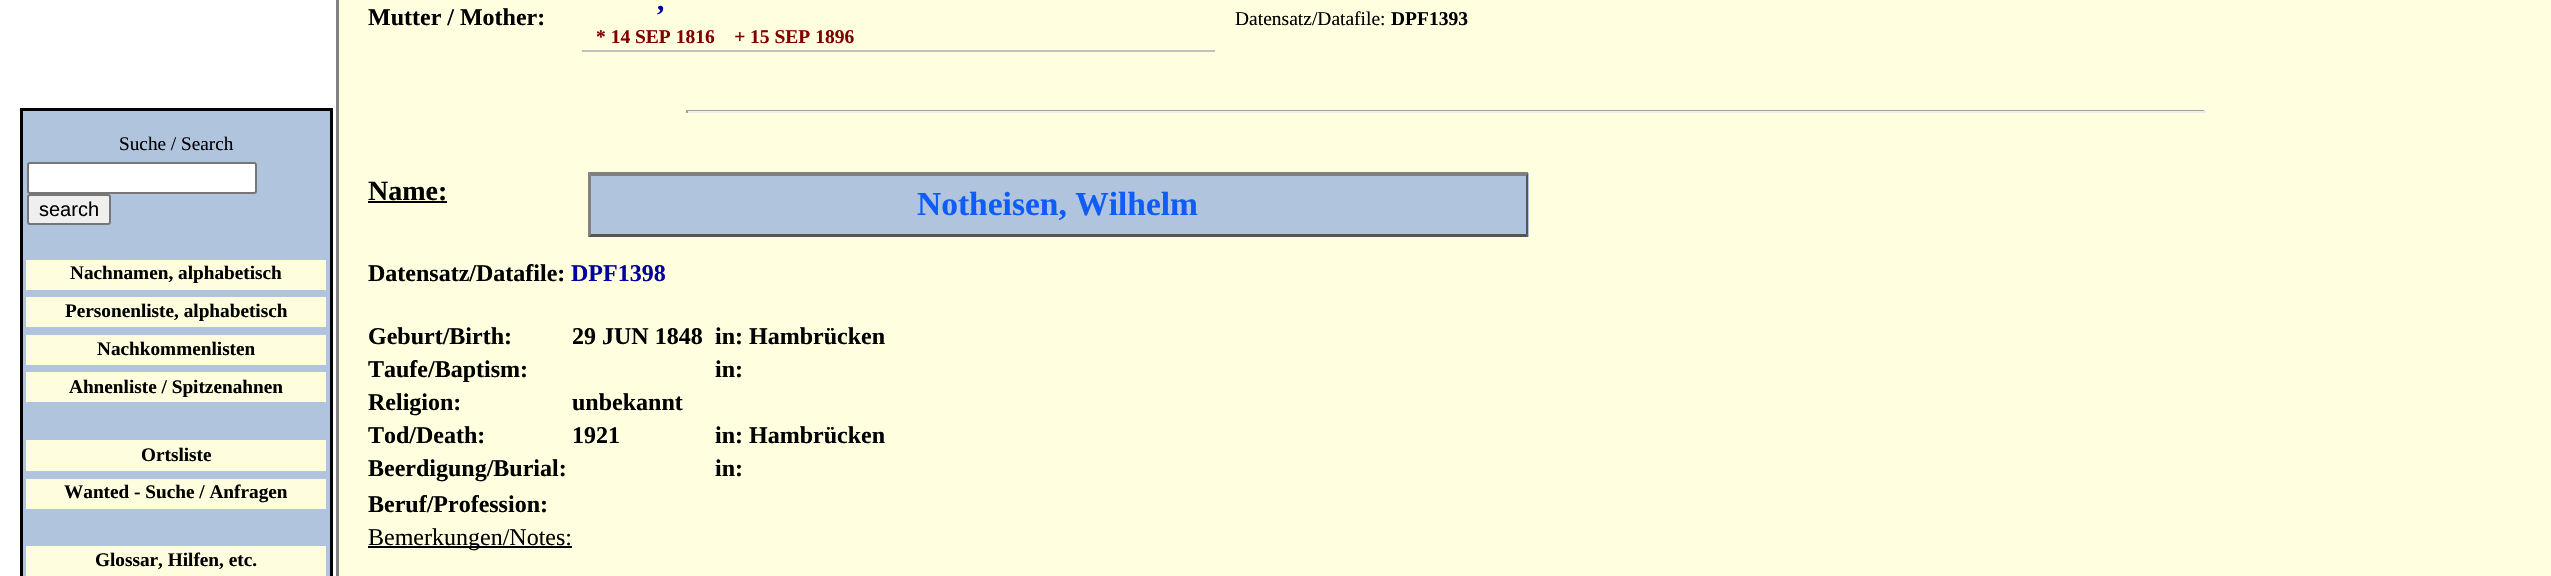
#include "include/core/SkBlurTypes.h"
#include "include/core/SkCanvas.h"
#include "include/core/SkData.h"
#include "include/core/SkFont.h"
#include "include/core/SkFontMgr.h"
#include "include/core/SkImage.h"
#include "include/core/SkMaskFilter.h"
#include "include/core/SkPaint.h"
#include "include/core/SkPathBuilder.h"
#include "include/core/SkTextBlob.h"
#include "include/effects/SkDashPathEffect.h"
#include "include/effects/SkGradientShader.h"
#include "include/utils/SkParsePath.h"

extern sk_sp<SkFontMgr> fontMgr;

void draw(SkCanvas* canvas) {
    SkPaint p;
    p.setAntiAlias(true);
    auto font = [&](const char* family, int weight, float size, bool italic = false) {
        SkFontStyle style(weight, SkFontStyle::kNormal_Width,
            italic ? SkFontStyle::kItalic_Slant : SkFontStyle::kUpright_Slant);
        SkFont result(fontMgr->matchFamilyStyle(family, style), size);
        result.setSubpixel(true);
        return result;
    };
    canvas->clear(0xFFFFFFFF);
    p.setColor(0xFFB0C4DE);
    canvas->drawRect(SkRect::MakeLTRB(21.5f, 109.5f, 331.5f, 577.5f), p);
    p.setStyle(SkPaint::kStroke_Style);
    p.setStrokeWidth(3);
    p.setColor(0xFF000000);
    canvas->drawRect(SkRect::MakeLTRB(21.5f, 109.5f, 331.5f, 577.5f), p);
    auto font1 = font("Liberation Serif", 400, 19.25f);
    p.setStyle(SkPaint::kFill_Style);
    canvas->drawString("Suche / Search", 119, 150, font1, p);
    p.setColor(0xFFFFFFFF);
    canvas->drawRoundRect(SkRect::MakeLTRB(28, 163, 256, 193), 2, 2, p);
    p.setStyle(SkPaint::kStroke_Style);
    p.setStrokeWidth(2);
    p.setColor(0xFF767676);
    canvas->drawRoundRect(SkRect::MakeLTRB(28, 163, 256, 193), 2, 2, p);
    p.setStyle(SkPaint::kFill_Style);
    p.setColor(0xFFEFEFEF);
    canvas->drawRoundRect(SkRect::MakeLTRB(28, 195, 110, 224), 2, 2, p);
    p.setStyle(SkPaint::kStroke_Style);
    p.setColor(0xFF767676);
    canvas->drawRoundRect(SkRect::MakeLTRB(28, 195, 110, 224), 2, 2, p);
    auto font2 = font("Liberation Sans", 400, 20);
    p.setStyle(SkPaint::kFill_Style);
    p.setColor(0xFF000000);
    canvas->drawString("search", 39, 216, font2, p);
    p.setColor(0xFFFEFEDE);
    canvas->drawRect(SkRect::MakeLTRB(26, 260, 326, 290), p);
    auto font3 = font("Liberation Serif", 700, 19.25f);
    p.setColor(0xFF000000);
    canvas->drawString("Nachnamen, alphabetisch", 70, 279, font3, p);
    p.setColor(0xFFFEFEDE);
    canvas->drawRect(SkRect::MakeLTRB(26, 297, 326, 327), p);
    p.setColor(0xFF000000);
    canvas->drawString("Personenliste, alphabetisch", 65, 317, font3, p);
    p.setColor(0xFFFEFEDE);
    canvas->drawRect(SkRect::MakeLTRB(26, 335, 326, 365), p);
    p.setColor(0xFF000000);
    canvas->drawString("Nachkommenlisten", 97, 355, font3, p);
    p.setColor(0xFFFEFEDE);
    canvas->drawRect(SkRect::MakeLTRB(26, 372, 326, 402), p);
    p.setColor(0xFF000000);
    canvas->drawString("Ahnenliste / Spitzenahnen", 69, 393, font3, p);
    p.setColor(0xFFFEFEDE);
    canvas->drawRect(SkRect::MakeLTRB(26, 440, 326, 471), p);
    p.setColor(0xFF000000);
    canvas->drawString("Ortsliste", 141, 461, font3, p);
    p.setColor(0xFFFEFEDE);
    canvas->drawRect(SkRect::MakeLTRB(26, 479, 326, 509), p);
    p.setColor(0xFF000000);
    canvas->drawString("Wanted - Suche / Anfragen", 64, 498, font3, p);
    p.setColor(0xFFFEFEDE);
    canvas->drawRect(SkRect::MakeLTRB(26, 546, 326, 576), p);
    p.setColor(0xFF000000);
    canvas->drawString("Glossar, Hilfen, etc.", 95, 566, font3, p);
    p.setColor(0xFFFFFFE0);
    canvas->drawRect(SkRect::MakeLTRB(339, 0, 2551, 576), p);
    p.setColor(0xFF808080);
    canvas->drawRect(SkRect::MakeLTRB(336, 0, 339, 576), p);
    auto font4 = font("Liberation Serif", 700, 24);
    p.setColor(0xFF000000);
    canvas->drawString("Mutter / Mother:", 368, 25, font4, p);
    p.setColor(0xFFC0C0C0);
    canvas->drawRect(SkRect::MakeLTRB(582, 50, 1215, 52), p);
    auto font5 = font("Liberation Serif", 700, 29);
    p.setColor(0xFF0000A0);
    canvas->drawString(",", 657, 10, font5, p);
    auto font6 = font("Liberation Serif", 700, 19.5f);
    p.setColor(0xFF800000);
    canvas->drawString("* 14 SEP 1816    + 15 SEP 1896", 596, 43, font6, p);
    auto font7 = font("Liberation Serif", 400, 19.5f);
    p.setColor(0xFF000000);
    canvas->drawString("Datensatz/Datafile:", 1235, 25, font7, p);
    canvas->drawString("DPF1393", 1391, 25, font6, p);
    {
        const struct { float l, t, r, b; SkColor color; } items[] = {
            {686, 110, 2205, 111, 0xFF9F9F9F},
            {2204, 110, 2206, 113, 0xFFEEEEEE},
            {686, 111, 2205, 113, 0xFFEEEEEE},
            {686, 110, 688, 113, 0xFF9F9F9F},
        };
        for (auto [l, t, r, b, color] : items) {
            p.setColor(color);
            canvas->drawRect(SkRect::MakeLTRB(l, t, r, b), p);
        }
    }
    auto font8 = font("Liberation Serif", 700, 28);
    p.setColor(0xFF000000);
    canvas->drawString("Name:", 368, 200, font8, p);
    canvas->drawRect(SkRect::MakeLTRB(368, 201, 447, 203), p);
    p.setColor(0xFFB0C4DE);
    canvas->drawRect(SkRect::MakeLTRB(588, 173, 1529, 237), p);
    p.setColor(0xFF808080);
    canvas->drawPath(SkPathBuilder().moveTo(588, 172).lineTo(1528, 172).lineTo(1526, 176).lineTo(591, 176).close().detach(), p);
    p.setColor(0xFF555555);
    canvas->drawPath(SkPathBuilder().moveTo(1528, 172).lineTo(1528, 237).lineTo(1526, 234).lineTo(1526, 176).close().detach(), p);
    canvas->drawPath(SkPathBuilder().moveTo(1528, 237).lineTo(588, 237).lineTo(591, 234).lineTo(1526, 234).close().detach(), p);
    p.setColor(0xFF808080);
    canvas->drawPath(SkPathBuilder().moveTo(588, 237).lineTo(588, 172).lineTo(591, 176).lineTo(591, 234).close().detach(), p);
    auto font9 = font("Liberation Serif", 700, 33.5f);
    p.setColor(0xFF0F5CF9);
    canvas->drawString("Notheisen, Wilhelm", 917, 215, font9, p);
    p.setColor(0xFF000000);
    canvas->drawString("Datensatz/Datafile:", 368, 281, font4, p);
    p.setColor(0xFF0000A0);
    canvas->drawString("DPF1398", 571, 281, font4, p);
    p.setColor(0xFF000000);
    {
        const struct { const char* s; float x, y; } items[] = {
            {"Geburt/Birth:", 368, 344},
            {"29 JUN 1848", 572, 344},
            {"in: Hambrücken", 715, 344},
            {"Taufe/Baptism:", 368, 377},
            {"in:", 715, 377},
            {"Religion:", 368, 410},
            {"unbekannt", 572, 410},
            {"Tod/Death:", 368, 443},
            {"1921", 572, 443},
            {"in: Hambrücken", 715, 443},
            {"Beerdigung/Burial:", 368, 476},
            {"in:", 715, 476},
            {"Beruf/Profession:", 368, 512},
        };
        for (auto [s, x, y] : items) {
            canvas->drawString(s, x, y, font4, p);
        }
    }
    canvas->drawRect(SkRect::MakeLTRB(368, 546, 572, 548), p);
    auto font10 = font("Liberation Serif", 400, 24);
    canvas->drawString("Bemerkungen/Notes:", 368, 545, font10, p);
}
